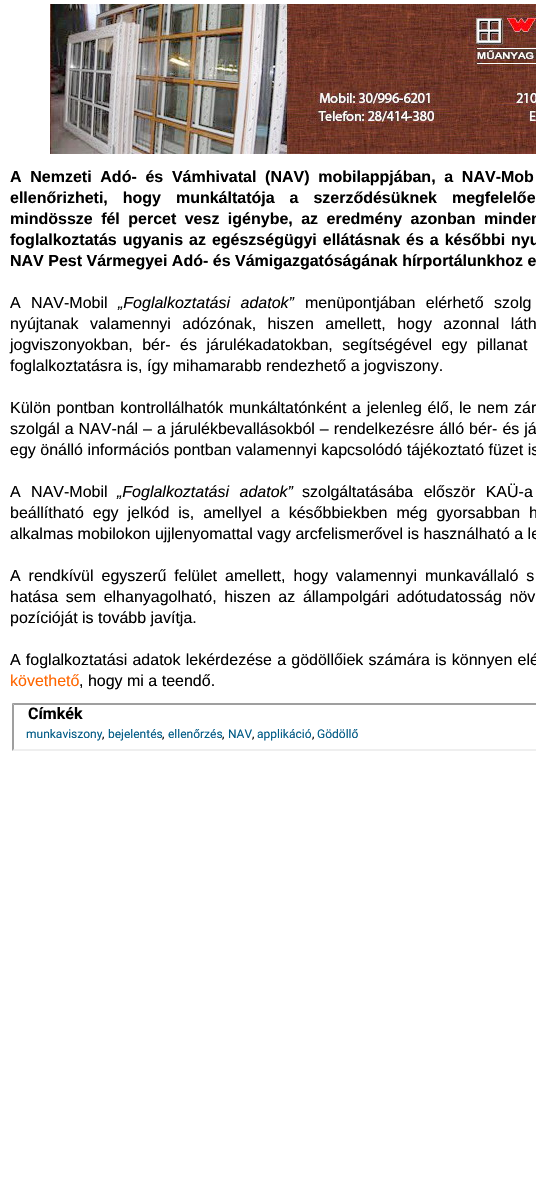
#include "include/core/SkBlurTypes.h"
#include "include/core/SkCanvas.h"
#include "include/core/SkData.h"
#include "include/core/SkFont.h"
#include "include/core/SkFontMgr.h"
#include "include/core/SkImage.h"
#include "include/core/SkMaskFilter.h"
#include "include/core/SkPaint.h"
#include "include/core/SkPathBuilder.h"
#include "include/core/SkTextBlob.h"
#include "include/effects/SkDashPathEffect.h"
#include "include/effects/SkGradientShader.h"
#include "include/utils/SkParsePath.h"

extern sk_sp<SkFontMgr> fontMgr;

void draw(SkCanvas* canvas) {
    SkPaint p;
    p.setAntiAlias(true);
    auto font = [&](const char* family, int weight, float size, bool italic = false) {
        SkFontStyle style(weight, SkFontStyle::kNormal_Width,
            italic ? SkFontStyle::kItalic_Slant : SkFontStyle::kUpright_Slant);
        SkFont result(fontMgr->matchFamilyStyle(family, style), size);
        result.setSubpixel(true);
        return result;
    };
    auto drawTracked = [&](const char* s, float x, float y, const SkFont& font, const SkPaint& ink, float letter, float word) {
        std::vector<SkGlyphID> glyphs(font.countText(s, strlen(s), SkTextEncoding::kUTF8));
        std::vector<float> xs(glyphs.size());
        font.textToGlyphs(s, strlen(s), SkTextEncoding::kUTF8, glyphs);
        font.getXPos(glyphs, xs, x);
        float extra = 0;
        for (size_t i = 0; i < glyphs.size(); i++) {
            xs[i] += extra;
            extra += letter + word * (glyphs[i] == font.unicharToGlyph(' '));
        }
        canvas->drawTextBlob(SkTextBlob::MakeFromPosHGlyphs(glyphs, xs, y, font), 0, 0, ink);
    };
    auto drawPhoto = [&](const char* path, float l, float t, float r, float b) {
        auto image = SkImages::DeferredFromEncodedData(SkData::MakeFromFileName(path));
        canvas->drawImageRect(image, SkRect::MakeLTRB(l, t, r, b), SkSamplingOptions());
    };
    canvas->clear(0xFFFFFFFF);
    drawPhoto("media/1.png", 50, 4, 536, 154);
    auto font1 = font("Liberation Sans", 700, 16);
    p.setColor(0xFF000000);
    drawTracked("A Nemzeti Adó- és Vámhivatal (NAV) mobilappjában, a NAV-Mob", 10, 182, font1, p, 0, 4.25f);
    drawTracked("ellenőrizheti, hogy munkáltatója a szerződésüknek megfelelőe", 10, 203, font1, p, 0, 10.5f);
    drawTracked("mindössze fél percet vesz igénybe, az eredmény azonban minden", 10, 224, font1, p, 0, 4);
    drawTracked("foglalkoztatás ugyanis az egészségügyi ellátásnak és a későbbi nyu", 10, 245, font1, p, 0, 1.5f);
    canvas->drawString("NAV Pest Vármegyei Adó- és Vámigazgatóságának hírportálunkhoz e", 10, 266, font1, p);
    auto font2 = font("Liberation Sans", 400, 16);
    drawTracked("A NAV-Mobil", 10, 308, font2, p, 0, 6);
    auto font3 = font("Liberation Sans", 400, 16, true);
    drawTracked("„Foglalkoztatási adatok”", 118, 308, font3, p, 0, 6);
    drawTracked("menüpontjában elérhető szolg", 305, 308, font2, p, 0, 6);
    drawTracked("nyújtanak valamennyi adózónak, hiszen amellett, hogy azonnal láth", 10, 329, font2, p, 0, 7);
    drawTracked("jogviszonyokban, bér- és járulékadatokban, segítségével egy pillanat", 10, 350, font2, p, 0, 5);
    canvas->drawString("foglalkoztatásra is, így mihamarabb rendezhető a jogviszony.", 10, 371, font2, p);
    drawTracked("Külön pontban kontrollálhatók munkáltatónként a jelenleg élő, le nem zár", 10, 413, font2, p, 0, 1.25f);
    drawTracked("szolgál a NAV-nál – a járulékbevallásokból – rendelkezésre álló bér- és já", 10, 434, font2, p, 0, 0.5f);
    canvas->drawString("egy önálló információs pontban valamennyi kapcsolódó tájékoztató füzet is", 10, 455, font2, p);
    drawTracked("A NAV-Mobil", 10, 497, font2, p, 0, 6);
    drawTracked("„Foglalkoztatási adatok”", 117, 497, font3, p, 0, 6);
    drawTracked("szolgáltatásába először KAÜ-a", 302, 497, font2, p, 0, 6);
    drawTracked("beállítható egy jelkód is, amellyel a későbbiekben még gyorsabban h", 10, 518, font2, p, 0, 4.5f);
    canvas->drawString("alkalmas mobilokon ujjlenyomattal vagy arcfelismerővel is használható a le", 10, 539, font2, p);
    drawTracked("A rendkívül egyszerű felület amellett, hogy valamennyi munkavállaló s", 10, 581, font2, p, 0, 3.5f);
    drawTracked("hatása sem elhanyagolható, hiszen az állampolgári adótudatosság növ", 10, 602, font2, p, 0, 3.25f);
    canvas->drawString("pozícióját is tovább javítja.", 10, 623, font2, p);
    drawTracked("A foglalkoztatási adatok lekérdezése a gödöllőiek számára is könnyen elé", 10, 665, font2, p, 0, 0.75f);
    p.setColor(0xFFFF6600);
    canvas->drawString("követhető", 10, 686, font2, p);
    p.setColor(0xFF000000);
    canvas->drawString(", hogy mi a teendő.", 79, 686, font2, p);
    p.setColor(0xFF9F9F9F);
    canvas->drawPath(SkPathBuilder().moveTo(12, 703).lineTo(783, 703).lineTo(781, 705).lineTo(14, 705).close().detach(), p);
    p.setColor(0xFFEFEFEF);
    canvas->drawPath(SkPathBuilder().moveTo(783, 751).lineTo(12, 751).lineTo(14, 749).lineTo(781, 749).close().detach(), p);
    p.setColor(0xFF9F9F9F);
    canvas->drawPath(SkPathBuilder().moveTo(12, 751).lineTo(12, 703).lineTo(14, 705).lineTo(14, 749).close().detach(), p);
    auto font4 = font("Roboto", 700, 16);
    p.setColor(0xFF000000);
    canvas->drawString("Címkék", 28, 719, font4, p);
    auto font5 = font("Roboto", 400, 12);
    p.setColor(0xFF015B86);
    canvas->drawString("munkaviszony", 26, 738, font5, p);
    p.setColor(0xFF000000);
    canvas->drawString(",", 102, 738, font5, p);
    p.setColor(0xFF015B86);
    canvas->drawString("bejelentés", 108, 738, font5, p);
    p.setColor(0xFF000000);
    canvas->drawString(",", 162, 738, font5, p);
    p.setColor(0xFF015B86);
    canvas->drawString("ellenőrzés", 168, 738, font5, p);
    p.setColor(0xFF000000);
    canvas->drawString(",", 222, 738, font5, p);
    p.setColor(0xFF015B86);
    canvas->drawString("NAV", 228, 738, font5, p);
    p.setColor(0xFF000000);
    canvas->drawString(",", 252, 738, font5, p);
    p.setColor(0xFF015B86);
    canvas->drawString("applikáció", 257, 738, font5, p);
    p.setColor(0xFF000000);
    canvas->drawString(",", 312, 738, font5, p);
    p.setColor(0xFF015B86);
    canvas->drawString("Gödöllő", 317, 738, font5, p);
}
